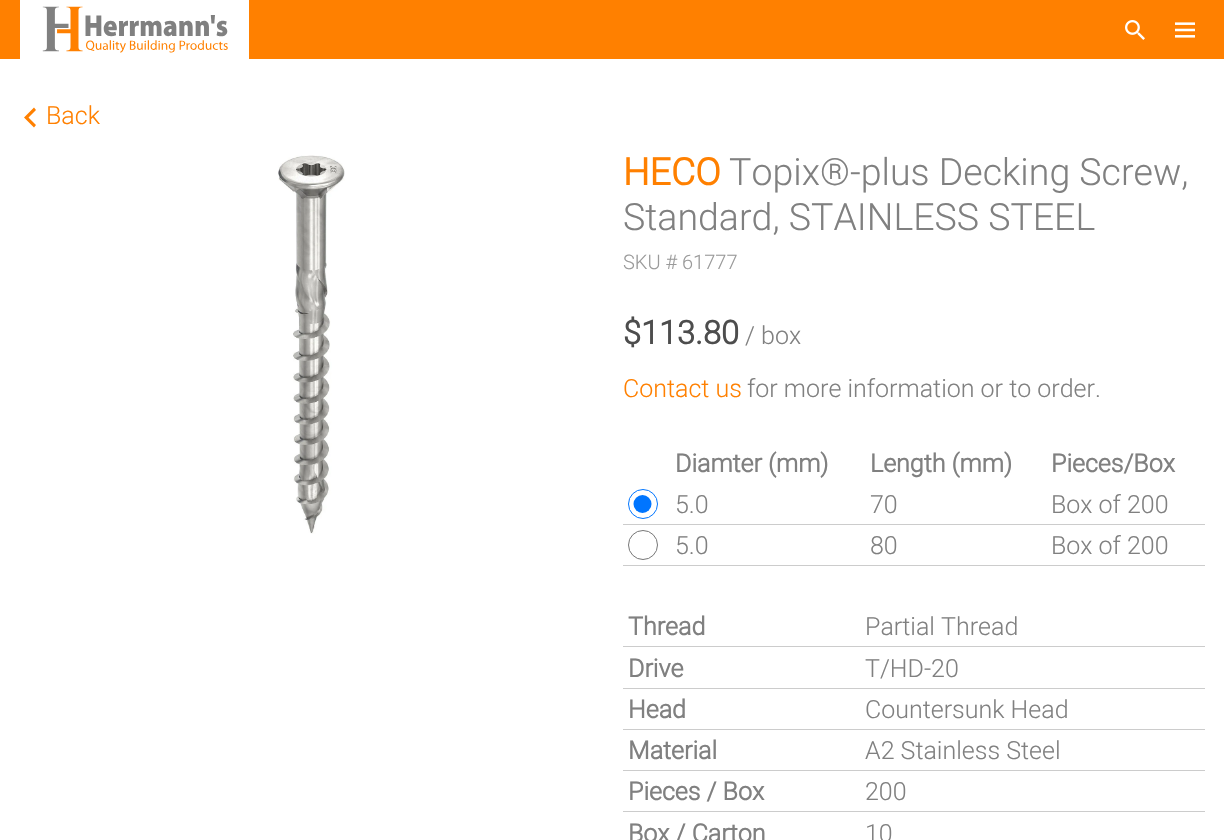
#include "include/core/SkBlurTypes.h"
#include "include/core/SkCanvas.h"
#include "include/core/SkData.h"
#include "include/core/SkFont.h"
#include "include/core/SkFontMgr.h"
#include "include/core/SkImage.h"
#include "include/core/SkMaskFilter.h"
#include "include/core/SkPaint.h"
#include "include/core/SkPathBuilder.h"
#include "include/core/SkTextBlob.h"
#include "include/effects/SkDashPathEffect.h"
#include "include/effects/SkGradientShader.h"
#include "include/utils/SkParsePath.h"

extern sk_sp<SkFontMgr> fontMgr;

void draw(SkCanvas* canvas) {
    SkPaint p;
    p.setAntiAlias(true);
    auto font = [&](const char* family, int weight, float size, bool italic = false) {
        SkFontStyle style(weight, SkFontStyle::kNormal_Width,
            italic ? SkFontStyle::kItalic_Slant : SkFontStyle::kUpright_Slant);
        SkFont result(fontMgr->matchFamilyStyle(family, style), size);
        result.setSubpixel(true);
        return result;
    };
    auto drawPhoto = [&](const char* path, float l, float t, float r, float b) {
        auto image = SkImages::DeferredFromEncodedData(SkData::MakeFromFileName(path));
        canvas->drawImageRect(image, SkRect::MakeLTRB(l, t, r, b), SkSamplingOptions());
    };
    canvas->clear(0xFFFFFFFF);
    p.setColor(0xFFFF8000);
    canvas->drawRect(SkRect::MakeLTRB(0, 0, 1224, 59), p);
    p.setColor(0xFFFFFFFF);
    canvas->drawRect(SkRect::MakeLTRB(20, 0, 249, 59), p);
    drawPhoto("media/1.png", 42, 6, 228, 53);
    drawPhoto("media/2.png", 1125, 20, 1145, 40);
    drawPhoto("media/3.png", 1175, 22, 1195, 38);
    p.setColor(0xFFFF8000);
    canvas->drawPath(SkPathBuilder().moveTo(36, 110).lineTo(34, 107.5f).lineTo(24, 117.5f).lineTo(34, 127.5f).lineTo(36, 125).lineTo(28.5f, 117.5f).close().detach(), p);
    auto font1 = font("Roboto", 300, 25);
    canvas->drawString("Back", 46, 124, font1, p);
    drawPhoto("media/4.png", 278, 155, 345, 534);
    auto font2 = font("Roboto", 700, 37.5f);
    canvas->drawString("HECO", 623, 185, font2, p);
    auto font3 = font("Roboto", 300, 37.5f);
    p.setColor(0xFF808080);
    canvas->drawString("Topix®-plus Decking Screw,", 729, 185, font3, p);
    canvas->drawString("Standard, STAINLESS STEEL", 623, 230, font3, p);
    auto font4 = font("Roboto", 300, 20);
    p.setColor(0xFF9A9A9A);
    canvas->drawString("SKU # 61777", 623, 269, font4, p);
    auto font5 = font("Roboto", 700, 32.5f);
    p.setColor(0xFF4D4D4D);
    canvas->drawString("$113.80", 623, 344, font5, p);
    p.setColor(0xFF808080);
    canvas->drawString("/ box", 745, 344, font1, p);
    p.setColor(0xFFFF8000);
    canvas->drawString("Contact us", 623, 397, font1, p);
    p.setColor(0xFF808080);
    canvas->drawString("for more information or to order.", 747, 397, font1, p);
    auto font6 = font("Roboto", 700, 25);
    {
        const struct { const char* s; float x, y; } items[] = {
            {"Diamter (mm)", 675, 472},
            {"Length (mm)", 870, 472},
            {"Pieces/Box", 1051, 472},
        };
        for (auto [s, x, y] : items) {
            canvas->drawString(s, x, y, font6, p);
        }
    }
    p.setColor(0xFFCCCCCC);
    canvas->drawRect(SkRect::MakeLTRB(623, 524, 1205, 525), p);
    p.setStyle(SkPaint::kStroke_Style);
    p.setStrokeWidth(1);
    p.setColor(0xFF0075FF);
    canvas->drawCircle(643, 504, 14.5f, p);
    p.setStyle(SkPaint::kFill_Style);
    canvas->drawCircle(642.5f, 504, 9, p);
    p.setColor(0xFF808080);
    {
        const struct { const char* s; float x, y; } items[] = {
            {"5.0", 675, 513},
            {"70", 870, 513},
            {"Box of 200", 1051, 513},
        };
        for (auto [s, x, y] : items) {
            canvas->drawString(s, x, y, font1, p);
        }
    }
    p.setColor(0xFFCCCCCC);
    canvas->drawRect(SkRect::MakeLTRB(623, 565, 1205, 566), p);
    p.setStyle(SkPaint::kStroke_Style);
    p.setColor(0xFF767676);
    canvas->drawCircle(643, 545, 14.5f, p);
    p.setStyle(SkPaint::kFill_Style);
    p.setColor(0xFF808080);
    {
        const struct { const char* s; float x, y; } items[] = {
            {"5.0", 675, 554},
            {"80", 870, 554},
            {"Box of 200", 1051, 554},
        };
        for (auto [s, x, y] : items) {
            canvas->drawString(s, x, y, font1, p);
        }
    }
    p.setColor(0xFFCCCCCC);
    canvas->drawRect(SkRect::MakeLTRB(623, 646, 1205, 647), p);
    p.setColor(0xFF808080);
    canvas->drawString("Thread", 628, 635, font6, p);
    canvas->drawString("Partial Thread", 865, 635, font1, p);
    p.setColor(0xFFCCCCCC);
    canvas->drawRect(SkRect::MakeLTRB(623, 688, 1205, 689), p);
    p.setColor(0xFF808080);
    canvas->drawString("Drive", 628, 677, font6, p);
    canvas->drawString("T/HD-20", 865, 677, font1, p);
    p.setColor(0xFFCCCCCC);
    canvas->drawRect(SkRect::MakeLTRB(623, 729, 1205, 730), p);
    p.setColor(0xFF808080);
    canvas->drawString("Head", 628, 718, font6, p);
    canvas->drawString("Countersunk Head", 865, 718, font1, p);
    p.setColor(0xFFCCCCCC);
    canvas->drawRect(SkRect::MakeLTRB(623, 770, 1205, 771), p);
    p.setColor(0xFF808080);
    canvas->drawString("Material", 628, 759, font6, p);
    canvas->drawString("A2 Stainless Steel", 865, 759, font1, p);
    p.setColor(0xFFCCCCCC);
    canvas->drawRect(SkRect::MakeLTRB(623, 811, 1205, 812), p);
    p.setColor(0xFF808080);
    canvas->drawString("Pieces / Box", 628, 800, font6, p);
    canvas->drawString("200", 865, 800, font1, p);
    canvas->drawString("Box / Carton", 628, 842, font6, p);
    canvas->drawString("10", 865, 842, font1, p);
}
